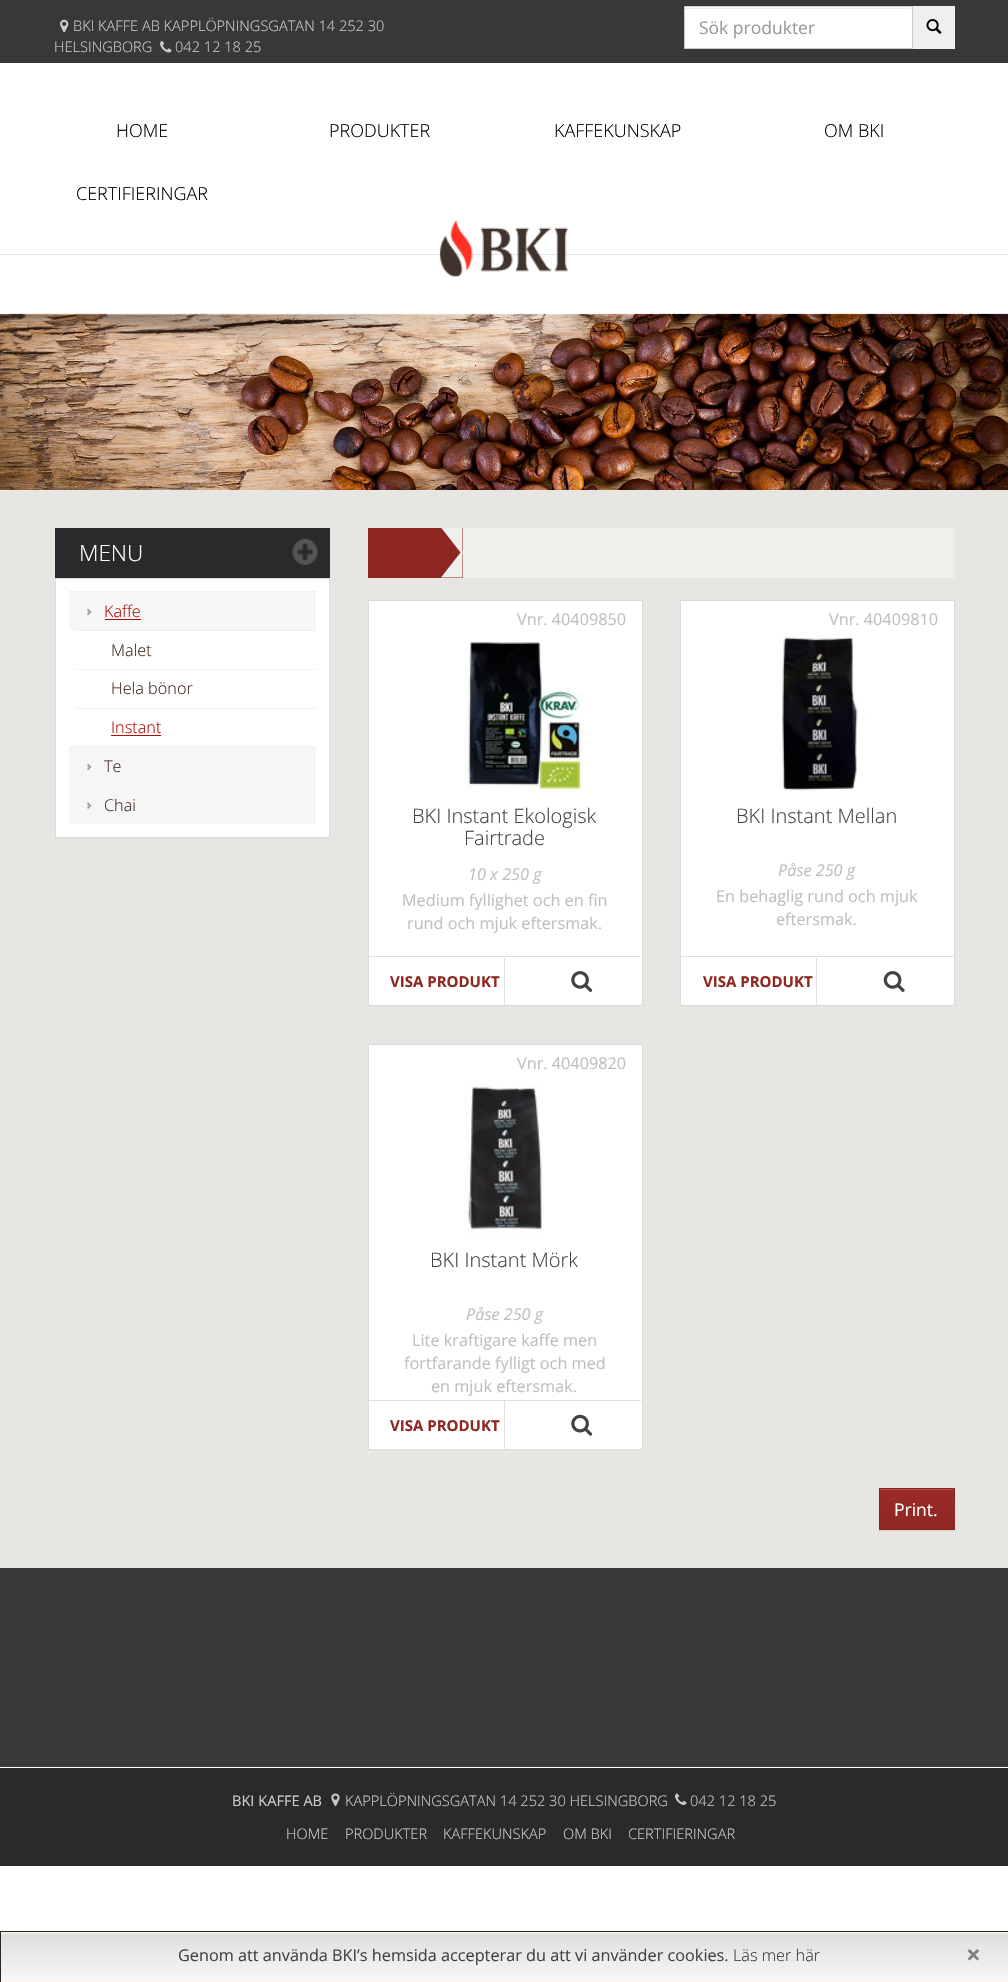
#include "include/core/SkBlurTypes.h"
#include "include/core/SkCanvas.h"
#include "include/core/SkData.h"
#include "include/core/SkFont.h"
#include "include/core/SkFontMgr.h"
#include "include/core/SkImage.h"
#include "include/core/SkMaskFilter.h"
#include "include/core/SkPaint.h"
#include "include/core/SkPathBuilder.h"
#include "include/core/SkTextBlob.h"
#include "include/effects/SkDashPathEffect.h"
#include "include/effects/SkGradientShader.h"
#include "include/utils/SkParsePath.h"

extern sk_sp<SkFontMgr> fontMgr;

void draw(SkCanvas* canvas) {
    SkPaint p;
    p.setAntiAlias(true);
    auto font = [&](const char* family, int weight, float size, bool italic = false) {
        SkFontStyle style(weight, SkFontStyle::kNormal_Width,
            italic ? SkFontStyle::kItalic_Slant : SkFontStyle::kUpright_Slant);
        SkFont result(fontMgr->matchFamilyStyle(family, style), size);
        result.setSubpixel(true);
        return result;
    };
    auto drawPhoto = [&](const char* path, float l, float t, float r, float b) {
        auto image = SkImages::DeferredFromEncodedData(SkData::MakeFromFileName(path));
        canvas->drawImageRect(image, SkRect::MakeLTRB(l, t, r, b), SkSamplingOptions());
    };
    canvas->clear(0xFFFFFFFF);
    p.setColor(0xFF37383A);
    canvas->drawRect(SkRect::MakeLTRB(0, 0, 1008, 63), p);
    drawPhoto("media/1.png", 60, 19, 69, 33);
    auto font1 = font("Open Sans", 300, 14.6f);
    p.setColor(0xFFCBCBCC);
    canvas->drawString("BKI KAFFE AB KAPPLÖPNINGSGATAN 14 252 30", 73, 31, font1, p);
    canvas->drawString("HELSINGBORG", 54, 52, font1, p);
    drawPhoto("media/2.png", 160, 41, 172, 53);
    canvas->drawString("042 12 18 25", 175, 52, font1, p);
    p.setColor(0xFFFFFFFF);
    canvas->drawRect(SkRect::MakeLTRB(685, 7, 912, 48), p);
    p.setColor(0xFFECECEC);
    canvas->drawRect(SkRect::MakeLTRB(685, 8, 911, 9), p);
    p.setStyle(SkPaint::kStroke_Style);
    p.setStrokeWidth(1);
    p.setColor(0xFFCCCCCC);
    canvas->drawRect(SkRect::MakeLTRB(684.5f, 6.5f, 912.5f, 48.5f), p);
    auto font2 = font("Open Sans", 400, 17.5f);
    p.setStyle(SkPaint::kFill_Style);
    p.setColor(0xFF999999);
    canvas->drawString("Sök produkter", 699, 34, font2, p);
    p.setColor(0xFFEFEFEF);
    canvas->drawRect(SkRect::MakeLTRB(913, 6, 955, 49), p);
    drawPhoto("media/3.png", 926, 19, 942, 34);
    auto font3 = font("Open Sans", 300, 18);
    p.setColor(0xFF000000);
    {
        const struct { const char* s; float x, y; } items[] = {
            {"HOME", 116, 137},
            {"PRODUKTER", 329, 137},
            {"KAFFEKUNSKAP", 554, 137},
            {"OM BKI", 824, 137},
            {"CERTIFIERINGAR", 76, 200},
        };
        for (auto [s, x, y] : items) {
            canvas->drawString(s, x, y, font3, p);
        }
    }
    p.setColor(0xFFE7E6E2);
    canvas->drawRect(SkRect::MakeLTRB(0, 254, 1008, 255), p);
    drawPhoto("media/4.png", 439, 220, 568, 277);
    drawPhoto("media/5.png", 0, 313, 1008, 490);
    drawPhoto("media/6.png", 0, 313, 1008, 348);
    canvas->drawRect(SkRect::MakeLTRB(0, 490, 1008, 1568), p);
    p.setColor(0xFF292A2C);
    canvas->drawRect(SkRect::MakeLTRB(55, 528, 330, 578), p);
    drawPhoto("media/7.png", 292, 538, 318, 565);
    auto font4 = font("Open Sans", 300, 22.5f);
    p.setColor(0xFFFFFFFF);
    canvas->drawString("MENU", 79, 561, font4, p);
    canvas->drawRect(SkRect::MakeLTRB(55.5f, 578.5f, 329.5f, 837.5f), p);
    p.setStyle(SkPaint::kStroke_Style);
    p.setColor(0xFFDCDBDB);
    canvas->drawRect(SkRect::MakeLTRB(55.5f, 578.5f, 329.5f, 837.5f), p);
    p.setStyle(SkPaint::kFill_Style);
    p.setColor(0xFFF6F6F6);
    canvas->drawRect(SkRect::MakeLTRB(69, 592, 316, 630), p);
    drawPhoto("media/8.png", 87, 608, 92, 616);
    p.setColor(0xFFF1F1F1);
    canvas->drawRect(SkRect::MakeLTRB(69, 591, 316, 592), p);
    auto font5 = font("Open Sans", 300, 16.25f);
    p.setColor(0xFFAF0C04);
    canvas->drawString("Kaffe", 104, 617, font5, p);
    canvas->drawRect(SkRect::MakeLTRB(105, 619, 141, 620), p);
    p.setColor(0xFFF1F1F1);
    canvas->drawRect(SkRect::MakeLTRB(75, 630, 316, 631), p);
    p.setColor(0xFF3E291F);
    canvas->drawString("Malet", 111, 656, font5, p);
    p.setColor(0xFFF1F1F1);
    canvas->drawRect(SkRect::MakeLTRB(75, 669, 316, 670), p);
    p.setColor(0xFF3E291F);
    canvas->drawString("Hela bönor", 111, 694, font5, p);
    p.setColor(0xFFF1F1F1);
    canvas->drawRect(SkRect::MakeLTRB(75, 708, 316, 709), p);
    p.setColor(0xFFAF0C04);
    canvas->drawString("Instant", 111, 733, font5, p);
    canvas->drawRect(SkRect::MakeLTRB(111, 735, 161, 736), p);
    p.setColor(0xFFF6F6F6);
    canvas->drawRect(SkRect::MakeLTRB(69, 747, 316, 785), p);
    drawPhoto("media/8.png", 87, 763, 92, 771);
    p.setColor(0xFFF1F1F1);
    canvas->drawRect(SkRect::MakeLTRB(69, 746, 316, 747), p);
    p.setColor(0xFF3E291F);
    canvas->drawString("Te", 104, 772, font5, p);
    p.setColor(0xFFF6F6F6);
    canvas->drawRect(SkRect::MakeLTRB(69, 786, 316, 824), p);
    drawPhoto("media/9.png", 87, 802, 92, 810);
    p.setColor(0xFFF1F1F1);
    canvas->drawRect(SkRect::MakeLTRB(69, 785, 316, 786), p);
    p.setColor(0xFF3E291F);
    canvas->drawString("Chai", 104, 811, font5, p);
    p.setColor(0xFFEFEFEC);
    canvas->drawRect(SkRect::MakeLTRB(463, 528, 955, 578), p);
    p.setColor(0xFF8E2722);
    canvas->drawRect(SkRect::MakeLTRB(368, 528, 463, 578), p);
    p.setColor(0xFFEFEFEC);
    canvas->drawPath(SkPathBuilder().moveTo(462.5f, 550).lineTo(462.5f, 577.5f).lineTo(441, 577.5f).close().detach(), p);
    canvas->drawPath(SkPathBuilder().moveTo(462.5f, 527.5f).lineTo(462.5f, 555).lineTo(441, 527.5f).close().detach(), p);
    p.setColor(0xFFFFFFFF);
    canvas->drawRect(SkRect::MakeLTRB(368.5f, 600.5f, 642.5f, 1005.5f), p);
    p.setStyle(SkPaint::kStroke_Style);
    p.setColor(0xFFDCDBDB);
    canvas->drawRect(SkRect::MakeLTRB(368.5f, 600.5f, 642.5f, 1005.5f), p);
    auto font6 = font("Open Sans", 400, 16.25f);
    p.setStyle(SkPaint::kFill_Style);
    p.setColor(0xFFC0C0C0);
    canvas->drawString("Vnr. 40409850", 517, 625, font6, p);
    drawPhoto("media/10.png", 464, 641, 585, 792);
    auto font7 = font("Open Sans", 300, 20);
    p.setColor(0xFF424242);
    canvas->drawString("BKI Instant Ekologisk", 412, 823, font7, p);
    canvas->drawString("Fairtrade", 464, 845, font7, p);
    auto font8 = font("Open Sans", 400, 16.25f, true);
    p.setColor(0xFFC0C0C0);
    canvas->drawString("10 x 250 g", 468, 880, font8, p);
    canvas->drawString("Medium fyllighet och en fin", 402, 906, font6, p);
    canvas->drawString("rund och mjuk eftersmak.", 407, 929, font6, p);
    p.setColor(0xFFE0DFDF);
    canvas->drawRect(SkRect::MakeLTRB(369, 956, 641, 957), p);
    canvas->drawRect(SkRect::MakeLTRB(504, 958, 505, 1005), p);
    auto font9 = font("Open Sans", 700, 15);
    p.setColor(0xFF8E2722);
    canvas->drawString("VISA PRODUKT", 390, 987, font9, p);
    drawPhoto("media/11.png", 571, 971, 593, 992);
    p.setColor(0xFFFFFFFF);
    canvas->drawRect(SkRect::MakeLTRB(680.5f, 600.5f, 954.5f, 1005.5f), p);
    p.setStyle(SkPaint::kStroke_Style);
    p.setColor(0xFFDCDBDB);
    canvas->drawRect(SkRect::MakeLTRB(680.5f, 600.5f, 954.5f, 1005.5f), p);
    p.setStyle(SkPaint::kFill_Style);
    p.setColor(0xFFC0C0C0);
    canvas->drawString("Vnr. 40409810", 829, 625, font6, p);
    drawPhoto("media/12.png", 776, 633, 865, 791);
    p.setColor(0xFF424242);
    canvas->drawString("BKI Instant Mellan", 736, 823, font7, p);
    p.setColor(0xFFC0C0C0);
    canvas->drawString("Påse 250 g", 778, 876, font8, p);
    canvas->drawString("En behaglig rund och mjuk", 716, 902, font6, p);
    canvas->drawString("eftersmak.", 776, 925, font6, p);
    p.setColor(0xFFE0DFDF);
    canvas->drawRect(SkRect::MakeLTRB(681, 956, 954, 957), p);
    canvas->drawRect(SkRect::MakeLTRB(816, 958, 817, 1005), p);
    p.setColor(0xFF8E2722);
    canvas->drawString("VISA PRODUKT", 703, 987, font9, p);
    drawPhoto("media/13.png", 883, 971, 905, 992);
    p.setColor(0xFFFFFFFF);
    canvas->drawRect(SkRect::MakeLTRB(368.5f, 1044.5f, 642.5f, 1449.5f), p);
    p.setStyle(SkPaint::kStroke_Style);
    p.setColor(0xFFDCDBDB);
    canvas->drawRect(SkRect::MakeLTRB(368.5f, 1044.5f, 642.5f, 1449.5f), p);
    p.setStyle(SkPaint::kFill_Style);
    p.setColor(0xFFC0C0C0);
    canvas->drawString("Vnr. 40409820", 517, 1069, font6, p);
    drawPhoto("media/14.png", 464, 1085, 544, 1235);
    p.setColor(0xFF424242);
    canvas->drawString("BKI Instant Mörk", 430, 1267, font7, p);
    p.setColor(0xFFC0C0C0);
    canvas->drawString("Påse 250 g", 466, 1320, font8, p);
    {
        const struct { const char* s; float x, y; } items[] = {
            {"Lite kraftigare kaffe men", 412, 1346},
            {"fortfarande fylligt och med", 404, 1369},
            {"en mjuk eftersmak.", 431, 1392},
        };
        for (auto [s, x, y] : items) {
            canvas->drawString(s, x, y, font6, p);
        }
    }
    p.setColor(0xFFE0DFDF);
    canvas->drawRect(SkRect::MakeLTRB(369, 1400, 641, 1401), p);
    canvas->drawRect(SkRect::MakeLTRB(504, 1401, 505, 1449), p);
    p.setColor(0xFF8E2722);
    canvas->drawString("VISA PRODUKT", 390, 1431, font9, p);
    drawPhoto("media/15.png", 571, 1414, 593, 1436);
    p.setColor(0x12000000);
    p.setMaskFilter(SkMaskFilter::MakeBlur(kNormal_SkBlurStyle, 0.5f));
    canvas->drawRect(SkRect::MakeLTRB(879, 1489, 955, 1531), p);
    p.setMaskFilter(nullptr);
    {
        const SkColor colors[] = {0xFF9B2C26, 0xFF8E2722};
        const float stops[] = {0, 1};
        const SkPoint ends[] = {{917, 1489}, {917, 1529}};
        p.setShader(SkGradientShader::MakeLinear(ends, colors, stops, 2, SkTileMode::kClamp));
        p.setAlpha(255);
    }
    canvas->drawRect(SkRect::MakeLTRB(880, 1490, 954, 1529), p);
    p.setShader(nullptr);
    p.setColor(0xFFAA4C47);
    canvas->drawRect(SkRect::MakeLTRB(880, 1489, 954, 1490), p);
    p.setStyle(SkPaint::kStroke_Style);
    p.setColor(0xFF8E2722);
    canvas->drawRect(SkRect::MakeLTRB(879.5f, 1488.5f, 954.5f, 1529.5f), p);
    p.setStyle(SkPaint::kFill_Style);
    p.setColor(0xFFFFFFFF);
    canvas->drawString("Print.", 894, 1516, font2, p);
    {
        const struct { float l, t, r, b; SkColor color; } items[] = {
            {0, 1568, 1008, 1766, 0xFF37383A},
            {0, 1766, 1008, 1767, 0xFF3F4041},
            {0, 1768, 1008, 1866, 0xFF292A2C},
        };
        for (auto [l, t, r, b, color] : items) {
            p.setColor(color);
            canvas->drawRect(SkRect::MakeLTRB(l, t, r, b), p);
        }
    }
    auto font10 = font("Open Sans", 400, 14.6f);
    p.setColor(0xFFCBCBCC);
    canvas->drawString("BKI KAFFE AB", 232, 1806, font10, p);
    drawPhoto("media/16.png", 331, 1793, 340, 1806);
    canvas->drawString("KAPPLÖPNINGSGATAN 14 252 30 HELSINGBORG", 345, 1806, font1, p);
    drawPhoto("media/17.png", 675, 1793, 687, 1805);
    {
        const struct { const char* s; float x, y; } items[] = {
            {"042 12 18 25", 690, 1806},
            {"HOME", 286, 1839},
            {"PRODUKTER", 345, 1839},
            {"KAFFEKUNSKAP", 443, 1839},
            {"OM BKI", 563, 1839},
            {"CERTIFIERINGAR", 628, 1839},
        };
        for (auto [s, x, y] : items) {
            canvas->drawString(s, x, y, font1, p);
        }
    }
    p.setColor(0xFFFCF8E3);
    canvas->drawRect(SkRect::MakeLTRB(1, 1932, 1008, 1982), p);
    {
        const SkColor colors[] = {0xFFDEDEDE, 0xFFF7F7F7};
        const float stops[] = {0, 1};
        const SkPoint ends[] = {{504, 1933}, {504, 1981}};
        p.setShader(SkGradientShader::MakeLinear(ends, colors, stops, 2, SkTileMode::kClamp));
        p.setAlpha(255);
    }
    canvas->drawRect(SkRect::MakeLTRB(1, 1934, 1008, 1981), p);
    p.setShader(nullptr);
    p.setColor(0xFFE6E6E6);
    canvas->drawRect(SkRect::MakeLTRB(1, 1933, 1008, 1934), p);
    p.setStyle(SkPaint::kStroke_Style);
    p.setColor(0xFF262625);
    canvas->drawRect(SkRect::MakeLTRB(0.5f, 1931.5f, 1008.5f, 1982.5f), p);
    p.setStyle(SkPaint::kFill_Style);
    p.setColor(0xFF424242);
    canvas->drawString("Genom att använda BKI’s hemsida accepterar du att vi använder cookies.", 178, 1961, font6, p);
    p.setColor(0xFF37383A);
    canvas->drawString("Läs mer här", 733, 1961, font5, p);
    auto font11 = font("Open Sans", 700, 26);
    p.setColor(0xFF828282);
    canvas->drawString("×", 966, 1964, font11, p);
}
